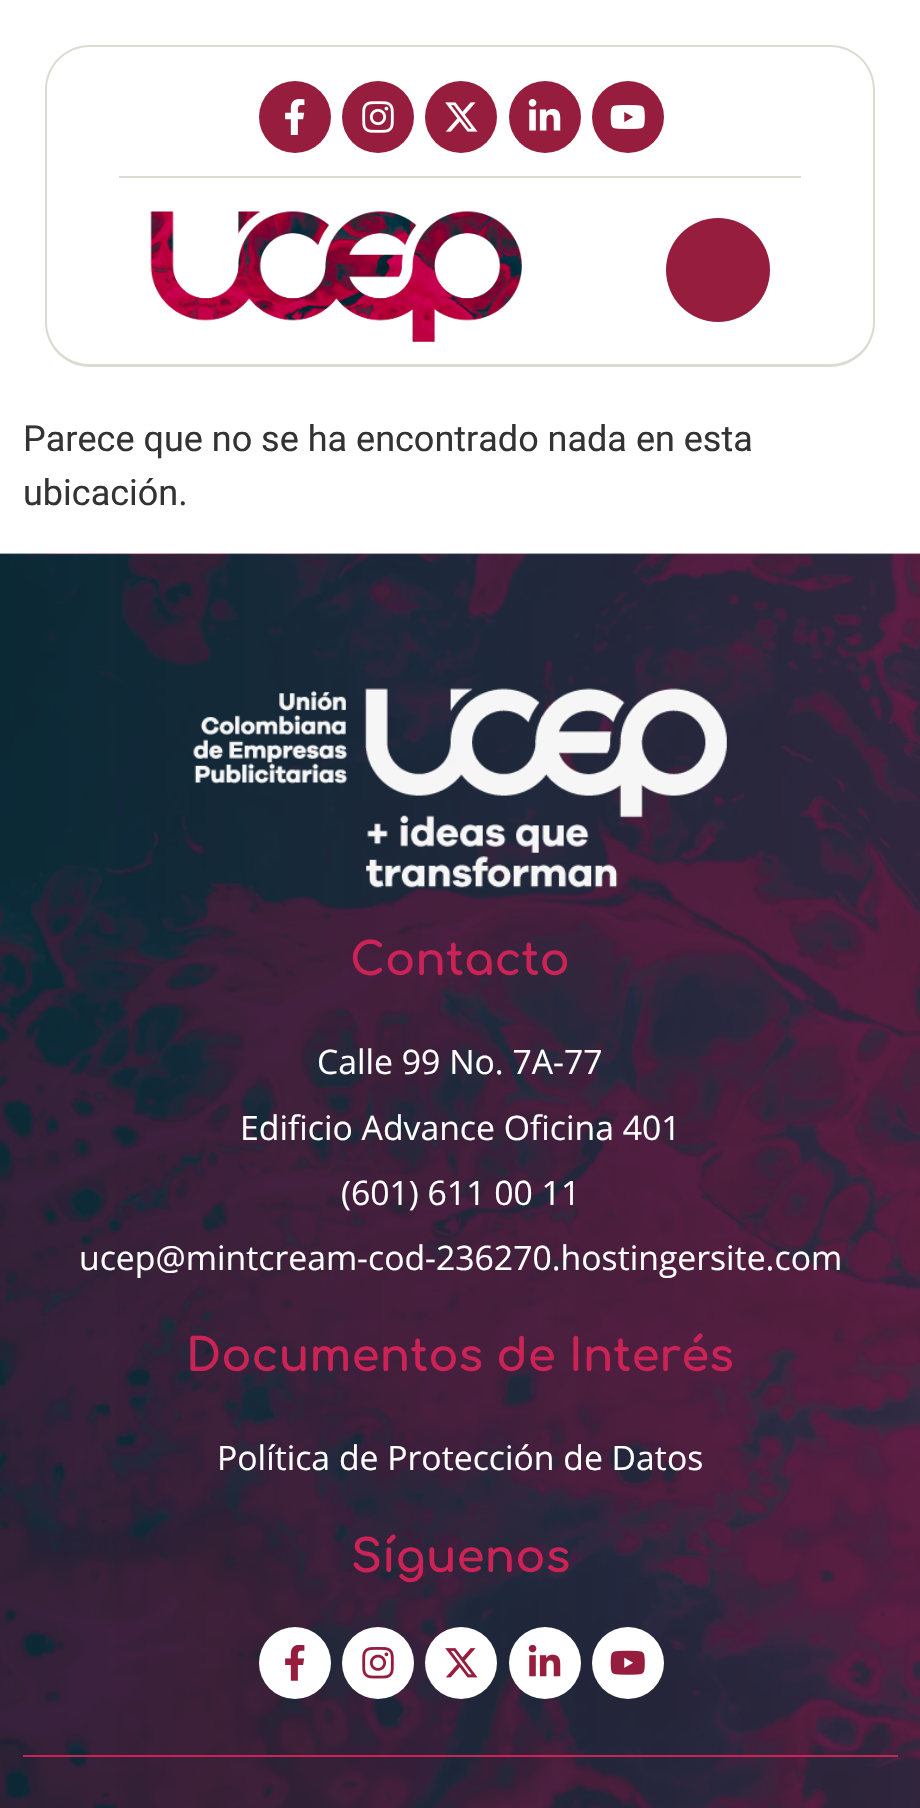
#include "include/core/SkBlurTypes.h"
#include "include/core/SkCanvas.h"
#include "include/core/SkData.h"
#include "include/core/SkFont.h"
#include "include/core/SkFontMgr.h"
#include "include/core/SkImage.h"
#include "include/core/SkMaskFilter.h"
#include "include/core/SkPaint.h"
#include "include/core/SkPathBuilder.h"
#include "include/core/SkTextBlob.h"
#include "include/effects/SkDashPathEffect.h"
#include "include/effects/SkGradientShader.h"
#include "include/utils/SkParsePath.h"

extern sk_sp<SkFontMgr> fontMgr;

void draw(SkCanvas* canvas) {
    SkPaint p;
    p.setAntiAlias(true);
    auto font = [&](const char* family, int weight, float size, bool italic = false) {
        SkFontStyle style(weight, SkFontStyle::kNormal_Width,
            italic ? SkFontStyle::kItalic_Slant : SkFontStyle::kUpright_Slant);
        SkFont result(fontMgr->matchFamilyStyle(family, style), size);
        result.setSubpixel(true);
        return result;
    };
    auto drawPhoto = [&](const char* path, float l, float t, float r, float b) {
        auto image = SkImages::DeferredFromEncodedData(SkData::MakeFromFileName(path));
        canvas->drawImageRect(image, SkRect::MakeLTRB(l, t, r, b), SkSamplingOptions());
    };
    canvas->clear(0xFFFFFFFF);
    p.setColor(0xFFDDDAD2);
    canvas->drawPath(SkPathBuilder(SkPathFillType::kEvenOdd).moveTo(90, 45).lineTo(830, 45).cubicTo(855, 45, 875, 65, 875, 90).lineTo(875, 200).lineTo(45, 200).lineTo(45, 90).cubicTo(45, 65, 65, 45, 90, 45).close().moveTo(90, 47).lineTo(830, 47).cubicTo(854, 47, 873, 66, 873, 90).lineTo(873, 200).lineTo(47, 200).lineTo(47, 90).cubicTo(47, 66, 66, 47, 90, 47).close().detach(), p);
    p.setColor(0xFF961D3E);
    canvas->drawCircle(295, 117, 36, p);
    drawPhoto("media/1.png", 285, 99, 305, 135);
    canvas->drawCircle(378, 117, 36, p);
    drawPhoto("media/2.png", 362, 101, 394, 133);
    canvas->drawCircle(461, 117, 36, p);
    drawPhoto("media/3.png", 445, 102, 478, 132);
    canvas->drawCircle(545, 117, 36, p);
    drawPhoto("media/4.png", 528, 99, 561, 131);
    canvas->drawCircle(628, 117, 36, p);
    drawPhoto("media/5.png", 610, 105, 645, 129);
    p.setColor(0xFFDDDAD2);
    canvas->drawRect(SkRect::MakeLTRB(119, 176, 801, 178), p);
    canvas->drawPath(SkPathBuilder(SkPathFillType::kEvenOdd).moveTo(45, 200).lineTo(875, 200).lineTo(875, 322).cubicTo(875, 347, 855, 367, 830, 367).lineTo(90, 367).cubicTo(65, 367, 45, 347, 45, 322).close().moveTo(47, 200).lineTo(873, 200).lineTo(873, 322).cubicTo(873, 345, 854, 364, 830, 364).lineTo(90, 364).cubicTo(66, 364, 47, 345, 47, 322).close().detach(), p);
    drawPhoto("media/6.png", 150, 211, 522, 342);
    p.setColor(0xFF961D3E);
    canvas->drawCircle(718, 270, 52, p);
    auto font1 = font("Roboto", 400, 36);
    p.setColor(0xFF333333);
    canvas->drawString("Parece que no se ha encontrado nada en esta", 23, 451, font1, p);
    canvas->drawString("ubicación.", 23, 505, font1, p);
    drawPhoto("media/7.png", 0, 553, 920, 1808);
    {
        const SkColor colors[] = {0xC70E2A37, 0xC73D2641};
        const float stops[] = {0, 1};
        const SkPoint ends[] = {{0, 1231}, {920, 1231}};
        p.setShader(SkGradientShader::MakeLinear(ends, colors, stops, 2, SkTileMode::kClamp));
        p.setAlpha(255);
    }
    canvas->drawRect(SkRect::MakeLTRB(0, 554, 920, 1808), p);
    drawPhoto("media/8.png", 193, 688, 727, 888);
    auto font2 = font("Comfortaa", 700, 45);
    p.setShader(nullptr);
    p.setColor(0xFFCC2357);
    canvas->drawString("Contacto", 350, 975, font2, p);
    auto font3 = font("Open Sans", 400, 33.75f);
    p.setColor(0xFFFFFFFF);
    {
        const struct { const char* s; float x, y; } items[] = {
            {"Calle 99 No. 7A-77", 317, 1074},
            {"Edificio Advance Oficina 401", 240, 1140},
            {"(601) 611 00 11", 341, 1205},
            {"ucep@mintcream-cod-236270.hostingersite.com", 79, 1270},
        };
        for (auto [s, x, y] : items) {
            canvas->drawString(s, x, y, font3, p);
        }
    }
    p.setColor(0xFFCC2357);
    canvas->drawString("Documentos de Interés", 186, 1371, font2, p);
    p.setColor(0xFFFFFFFF);
    canvas->drawString("Política de Protección de Datos", 217, 1470, font3, p);
    p.setColor(0xFFCC2357);
    canvas->drawString("Síguenos", 351, 1572, font2, p);
    p.setColor(0xFFFFFFFF);
    canvas->drawCircle(295, 1663, 36, p);
    drawPhoto("media/9.png", 285, 1645, 305, 1681);
    canvas->drawCircle(378, 1663, 36, p);
    drawPhoto("media/10.png", 362, 1647, 394, 1679);
    canvas->drawCircle(461, 1663, 36, p);
    drawPhoto("media/11.png", 445, 1648, 478, 1678);
    canvas->drawCircle(545, 1663, 36, p);
    drawPhoto("media/12.png", 528, 1645, 561, 1677);
    canvas->drawCircle(628, 1663, 36, p);
    drawPhoto("media/13.png", 610, 1650, 645, 1675);
    p.setColor(0xFFCC2357);
    canvas->drawRect(SkRect::MakeLTRB(23, 1755, 898, 1757), p);
}
